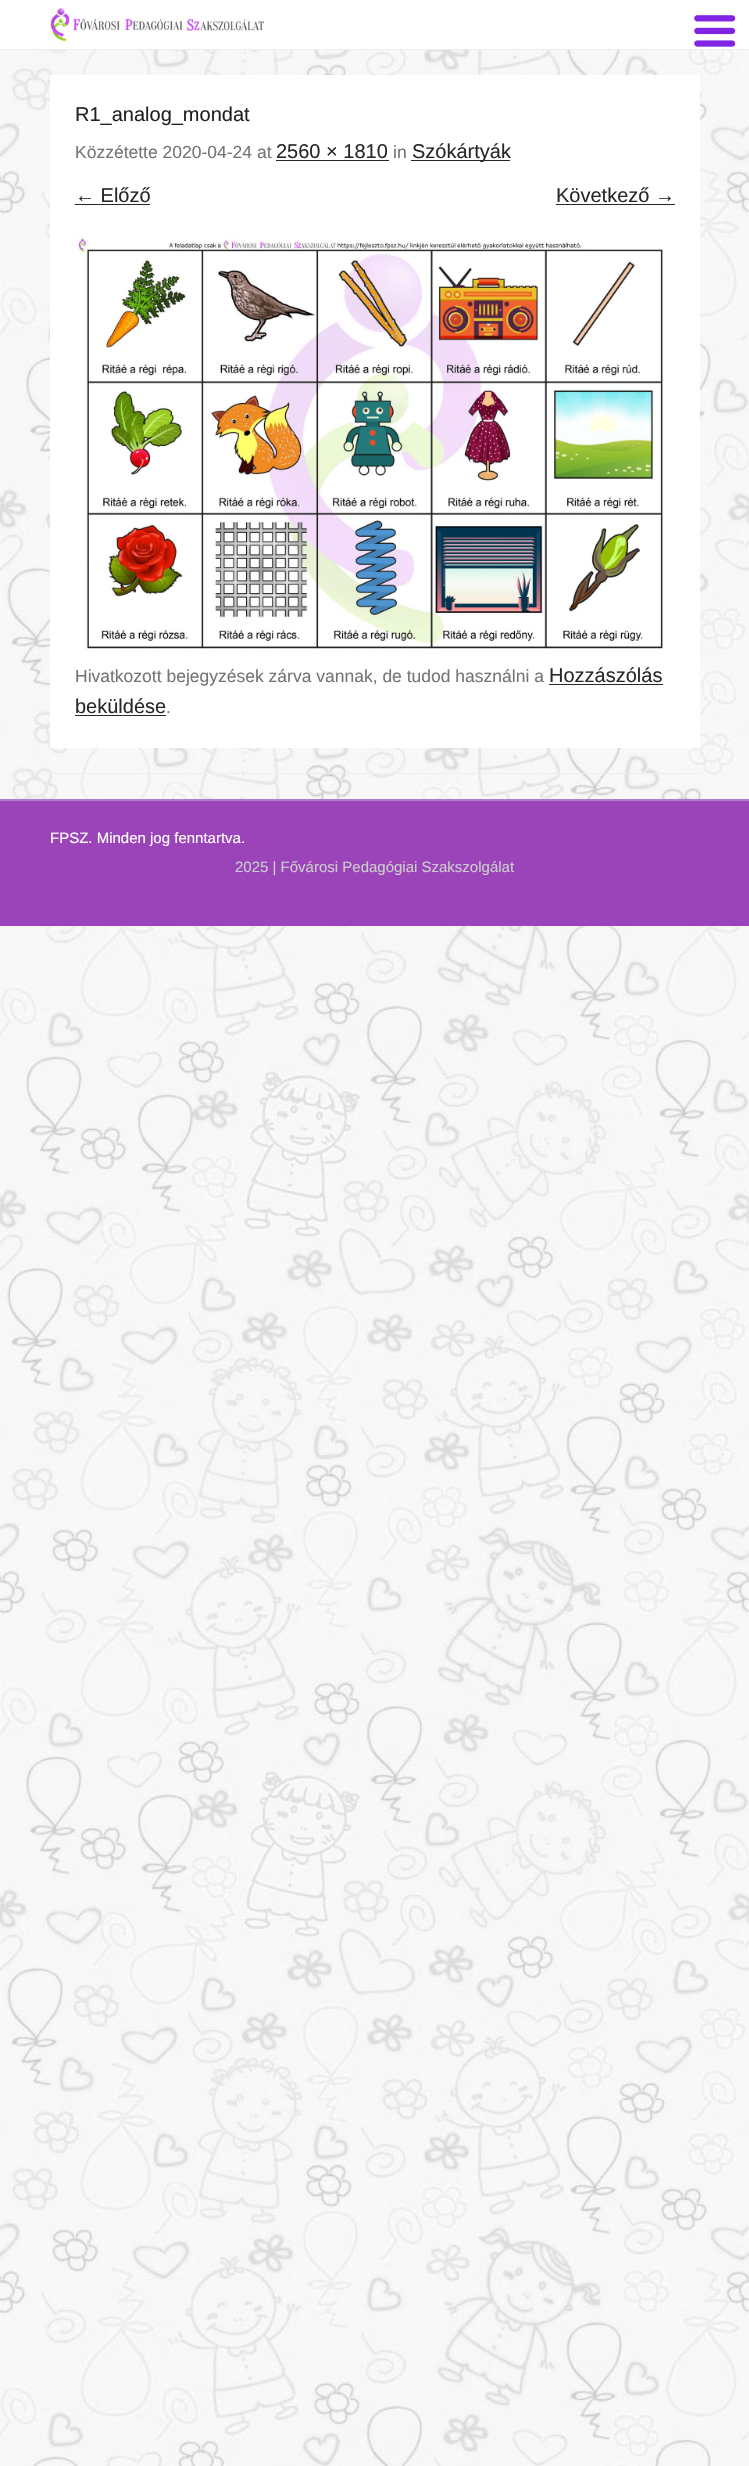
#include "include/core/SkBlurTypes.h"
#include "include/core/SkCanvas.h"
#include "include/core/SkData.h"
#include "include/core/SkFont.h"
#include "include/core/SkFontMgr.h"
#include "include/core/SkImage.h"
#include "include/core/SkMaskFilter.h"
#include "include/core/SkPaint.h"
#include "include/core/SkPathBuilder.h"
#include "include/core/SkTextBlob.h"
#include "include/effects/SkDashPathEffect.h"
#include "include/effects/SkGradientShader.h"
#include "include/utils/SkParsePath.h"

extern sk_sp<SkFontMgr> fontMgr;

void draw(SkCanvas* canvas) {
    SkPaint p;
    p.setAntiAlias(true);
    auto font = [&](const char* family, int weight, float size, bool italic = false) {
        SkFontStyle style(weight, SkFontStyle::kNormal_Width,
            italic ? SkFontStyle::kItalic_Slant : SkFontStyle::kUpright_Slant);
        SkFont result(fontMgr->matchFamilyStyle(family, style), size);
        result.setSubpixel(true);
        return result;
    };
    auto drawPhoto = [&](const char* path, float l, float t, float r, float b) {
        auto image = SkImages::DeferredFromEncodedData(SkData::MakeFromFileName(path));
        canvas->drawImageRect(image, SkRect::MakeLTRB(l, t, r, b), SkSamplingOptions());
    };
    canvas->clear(0xFFFFFFFF);
    drawPhoto("media/1.png", 0, 50, 749, 2466);
    drawPhoto("media/2.png", 694, 15, 736, 47);
    p.setColor(0xFFEEEEEE);
    canvas->drawRect(SkRect::MakeLTRB(0, 49, 749, 50), p);
    drawPhoto("media/3.png", 50, 8, 265, 42);
    canvas->drawRect(SkRect::MakeLTRB(50, 773, 700, 774), p);
    p.setColor(0xFFFFFFFF);
    canvas->drawRect(SkRect::MakeLTRB(50, 75, 700, 748), p);
    auto font1 = font("Liberation Sans", 400, 20);
    p.setColor(0xFF222222);
    canvas->drawString("R1_analog_mondat", 75, 121, font1, p);
    auto font2 = font("Liberation Sans", 400, 17.5f);
    p.setColor(0xFF757575);
    canvas->drawString("Közzétette 2020-04-24 at", 75, 158, font2, p);
    p.setColor(0xFF282828);
    canvas->drawString("2560 × 1810", 276, 158, font1, p);
    canvas->drawRect(SkRect::MakeLTRB(276, 160, 389, 161), p);
    p.setColor(0xFF757575);
    canvas->drawString("in", 393, 158, font2, p);
    p.setColor(0xFF282828);
    canvas->drawRect(SkRect::MakeLTRB(411, 160, 510, 161), p);
    canvas->drawString("Szókártyák", 412, 158, font1, p);
    canvas->drawString("← Előző", 75, 202, font1, p);
    canvas->drawRect(SkRect::MakeLTRB(75, 204, 150, 205), p);
    canvas->drawString("Következő →", 556, 202, font1, p);
    canvas->drawRect(SkRect::MakeLTRB(556, 204, 675, 205), p);
    drawPhoto("media/4.png", 75, 236, 663, 649);
    p.setColor(0xFF757575);
    canvas->drawString("Hivatkozott bejegyzések zárva vannak, de tudod használni a", 75, 682, font2, p);
    p.setColor(0xFF282828);
    canvas->drawString("Hozzászólás", 549, 682, font1, p);
    canvas->drawRect(SkRect::MakeLTRB(549, 684, 663, 685), p);
    canvas->drawString("beküldése", 75, 713, font1, p);
    canvas->drawRect(SkRect::MakeLTRB(75, 715, 166, 716), p);
    p.setColor(0xFF757575);
    canvas->drawString(".", 166, 713, font2, p);
    p.setColor(0xFFAB7ECB);
    canvas->drawRect(SkRect::MakeLTRB(0, 799, 749, 801), p);
    p.setColor(0xFF9B44BA);
    canvas->drawRect(SkRect::MakeLTRB(0, 801, 749, 926), p);
    auto font3 = font("Liberation Sans", 400, 15);
    p.setColor(0xFFFFFFFF);
    canvas->drawString("FPSZ. Minden jog fenntartva.", 50, 843, font3, p);
    p.setColor(0xFFCCCCCC);
    canvas->drawString("2025 | Fővárosi Pedagógiai Szakszolgálat", 235, 872, font3, p);
}
